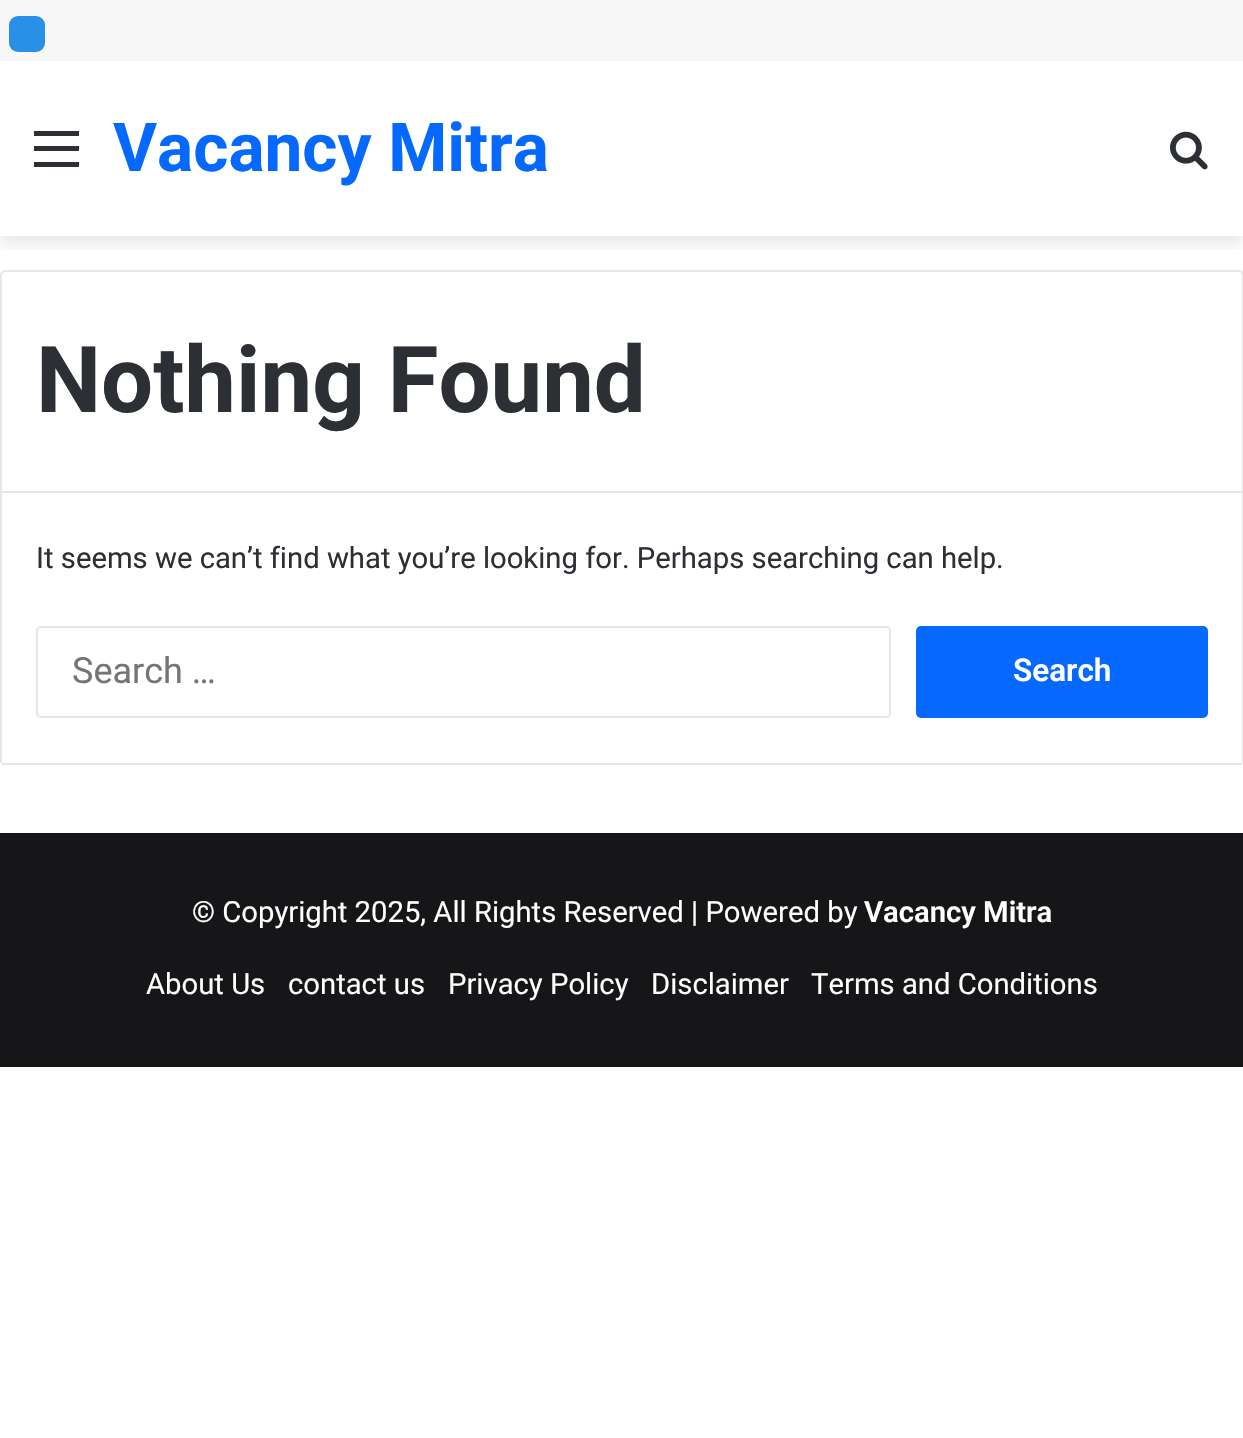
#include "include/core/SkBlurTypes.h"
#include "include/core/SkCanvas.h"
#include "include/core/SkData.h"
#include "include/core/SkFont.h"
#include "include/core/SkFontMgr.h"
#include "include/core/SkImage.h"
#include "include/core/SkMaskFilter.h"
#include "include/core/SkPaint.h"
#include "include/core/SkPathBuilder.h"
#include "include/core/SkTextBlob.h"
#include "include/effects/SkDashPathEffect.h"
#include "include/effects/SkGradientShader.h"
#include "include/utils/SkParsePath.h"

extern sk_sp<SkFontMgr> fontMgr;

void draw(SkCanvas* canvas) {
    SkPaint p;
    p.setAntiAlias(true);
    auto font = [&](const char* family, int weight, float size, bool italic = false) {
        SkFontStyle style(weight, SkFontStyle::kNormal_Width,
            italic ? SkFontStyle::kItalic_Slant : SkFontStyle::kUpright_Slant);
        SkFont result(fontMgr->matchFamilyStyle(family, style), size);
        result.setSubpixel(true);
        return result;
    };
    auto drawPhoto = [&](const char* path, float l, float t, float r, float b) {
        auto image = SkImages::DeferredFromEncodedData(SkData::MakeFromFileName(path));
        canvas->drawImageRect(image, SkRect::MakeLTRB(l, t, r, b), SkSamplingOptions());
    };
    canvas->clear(0xFFF7F7F7);
    p.setColor(0xFF2990EA);
    canvas->drawRoundRect(SkRect::MakeLTRB(9, 16, 45, 52), 9, 9, p);
    p.setColor(0xFFFFFFFF);
    canvas->drawRect(SkRect::MakeLTRB(0, 61, 1243, 1438), p);
    canvas->save();
    canvas->clipRect(SkRect::MakeLTRB(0, 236, 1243, 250));
    p.setColor(0x1A000000);
    p.setMaskFilter(SkMaskFilter::MakeBlur(kNormal_SkBlurStyle, 8));
    canvas->drawRect(SkRect::MakeLTRB(0, 68, 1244, 243), p);
    p.setMaskFilter(nullptr);
    canvas->restore();
    {
        const struct { float l, t, r, b; SkColor color; } items[] = {
            {34, 146, 79, 151, 0xFF2C2F34},
            {34, 131, 79, 136, 0xFF2C2F34},
            {34, 162, 79, 167, 0xFF2C2F34},
        };
        for (auto [l, t, r, b, color] : items) {
            p.setColor(color);
            canvas->drawRect(SkRect::MakeLTRB(l, t, r, b), p);
        }
    }
    auto font1 = font("Roboto", 700, 67.5f);
    p.setColor(0xFF0669FF);
    canvas->drawString("Vacancy Mitra", 113, 171, font1, p);
    drawPhoto("media/1.png", 1170, 131, 1208, 170);
    p.setStyle(SkPaint::kStroke_Style);
    p.setStrokeWidth(2);
    p.setColor(0xFFE6E6E6);
    canvas->drawPath(SkPathBuilder().moveTo(5, 271).lineTo(1239, 271).cubicTo(1241, 271, 1243, 273, 1243, 275).lineTo(1243, 492).lineTo(1, 492).lineTo(1, 275).cubicTo(1, 273, 3, 271, 5, 271).close().detach(), p);
    auto font2 = font("Roboto", 700, 92.25f);
    p.setStyle(SkPaint::kFill_Style);
    p.setColor(0xFF2C2F34);
    canvas->drawString("Nothing Found", 36, 412, font2, p);
    {
        const struct { float l, t, r, b; SkColor color; } items[] = {
            {1242, 493, 1243, 763, 0xFFE6E6E6},
            {2, 763, 1242, 765, 0xFFE6E6E6},
            {0, 493, 2, 763, 0xFFE6E6E6},
        };
        for (auto [l, t, r, b, color] : items) {
            p.setColor(color);
            canvas->drawRect(SkRect::MakeLTRB(l, t, r, b), p);
        }
    }
    auto font3 = font("Roboto", 400, 29.25f);
    p.setColor(0xFF2C2F34);
    canvas->drawString("It seems we can’t find what you’re looking for. Perhaps searching can help.", 36, 568, font3, p);
    p.setStyle(SkPaint::kStroke_Style);
    p.setColor(0xFFE6E6E6);
    canvas->drawRoundRect(SkRect::MakeLTRB(37, 627, 890, 717), 4, 4, p);
    auto font4 = font("Roboto", 400, 36);
    p.setStyle(SkPaint::kFill_Style);
    p.setColor(0xFF757575);
    canvas->drawString("Search …", 72, 683, font4, p);
    p.setColor(0xFF0669FF);
    canvas->drawRoundRect(SkRect::MakeLTRB(916, 626, 1208, 718), 5, 5, p);
    auto font5 = font("Roboto", 600, 31.5f);
    p.setColor(0xFFFFFFFF);
    canvas->drawString("Search", 1013, 681, font5, p);
    p.setColor(0xFF161619);
    canvas->drawRect(SkRect::MakeLTRB(0, 833, 1243, 1067), p);
    p.setColor(0xFFFFFFFF);
    canvas->drawString("© Copyright 2025, All Rights Reserved | Powered by", 192, 922, font3, p);
    auto font6 = font("Roboto", 600, 29.25f);
    canvas->drawString("Vacancy Mitra", 864, 922, font6, p);
    {
        const struct { const char* s; float x, y; } items[] = {
            {"About Us", 146, 994},
            {"contact us", 288, 994},
            {"Privacy Policy", 448, 994},
            {"Disclaimer", 651, 994},
            {"Terms and Conditions", 811, 994},
        };
        for (auto [s, x, y] : items) {
            canvas->drawString(s, x, y, font3, p);
        }
    }
}
